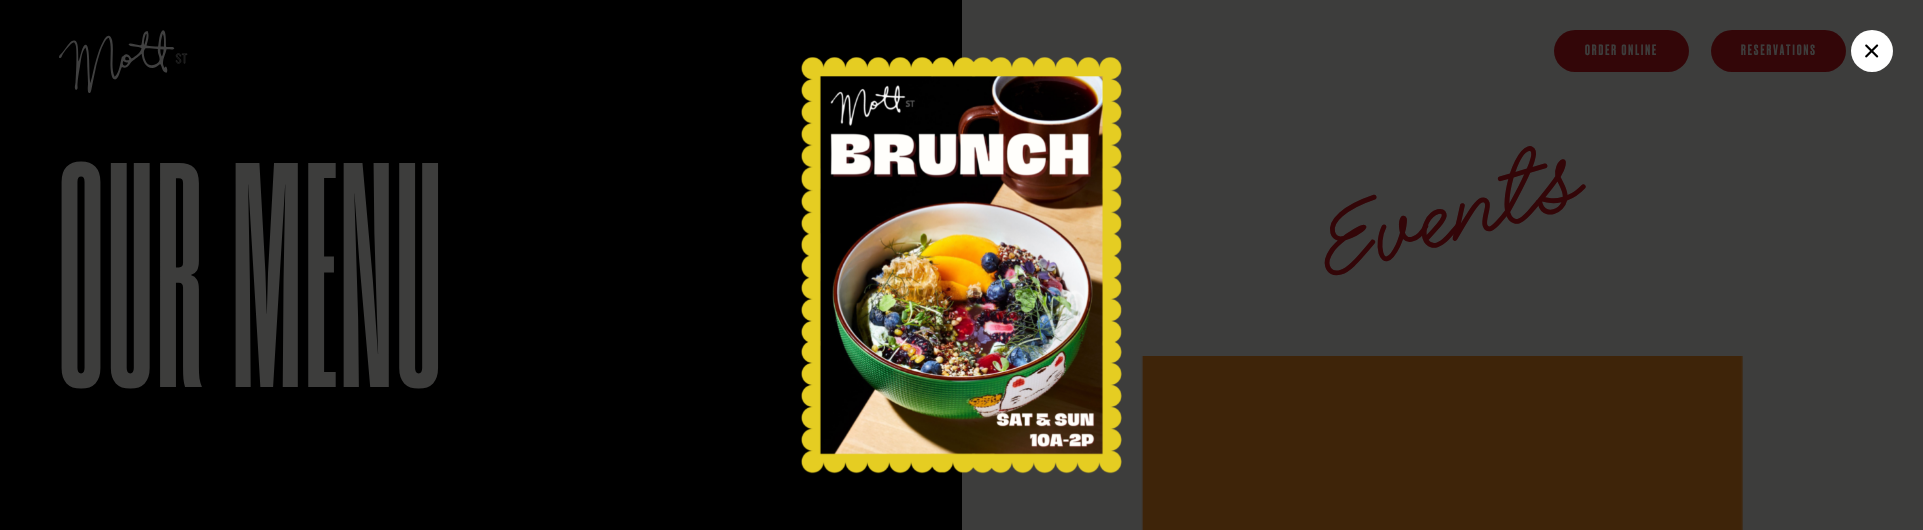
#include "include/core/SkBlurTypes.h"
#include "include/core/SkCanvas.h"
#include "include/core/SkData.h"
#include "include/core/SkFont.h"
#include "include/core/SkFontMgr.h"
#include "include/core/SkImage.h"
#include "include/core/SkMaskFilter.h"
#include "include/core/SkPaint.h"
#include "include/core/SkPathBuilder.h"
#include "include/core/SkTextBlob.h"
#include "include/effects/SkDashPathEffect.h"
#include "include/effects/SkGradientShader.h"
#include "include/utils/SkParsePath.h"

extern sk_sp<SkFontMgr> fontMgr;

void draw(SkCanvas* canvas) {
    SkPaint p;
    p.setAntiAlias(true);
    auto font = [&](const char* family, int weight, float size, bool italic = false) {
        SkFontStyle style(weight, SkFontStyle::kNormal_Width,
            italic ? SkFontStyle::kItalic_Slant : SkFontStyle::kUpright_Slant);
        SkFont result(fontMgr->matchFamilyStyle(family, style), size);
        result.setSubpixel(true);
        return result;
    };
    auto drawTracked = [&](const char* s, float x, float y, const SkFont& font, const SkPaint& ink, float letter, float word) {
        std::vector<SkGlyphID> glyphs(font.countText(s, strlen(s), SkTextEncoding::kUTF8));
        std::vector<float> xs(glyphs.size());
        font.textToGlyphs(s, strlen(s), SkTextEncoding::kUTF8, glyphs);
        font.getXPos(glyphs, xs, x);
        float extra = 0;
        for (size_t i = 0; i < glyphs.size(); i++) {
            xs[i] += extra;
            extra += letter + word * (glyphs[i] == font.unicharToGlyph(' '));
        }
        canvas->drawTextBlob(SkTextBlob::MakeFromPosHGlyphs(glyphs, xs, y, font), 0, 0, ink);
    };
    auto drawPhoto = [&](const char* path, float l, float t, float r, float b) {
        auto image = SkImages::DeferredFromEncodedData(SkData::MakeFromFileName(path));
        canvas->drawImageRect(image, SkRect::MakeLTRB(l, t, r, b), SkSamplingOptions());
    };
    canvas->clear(0xFF000000);
    p.setColor(0xFF3D3D3C);
    canvas->drawRect(SkRect::MakeLTRB(962, 0, 1923, 530), p);
    p.setColor(0xFFFFFFFF);
    canvas->drawCircle(1872, 51, 21, p);
    drawPhoto("media/1.png", 1865, 44, 1879, 58);
    drawPhoto("media/2.png", 801, 57, 1122, 474);
    drawPhoto("media/3.png", 59, 30, 188, 93);
    p.setColor(0xFF330608);
    canvas->drawRoundRect(SkRect::MakeLTRB(1554, 30, 1689, 72), 21, 21, p);
    auto font1 = font("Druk", 500, 14);
    p.setColor(0xFF3D3D3C);
    drawTracked("ORDER ONLINE", 1585, 55, font1, p, 2, 0);
    p.setColor(0xFF330608);
    canvas->drawRoundRect(SkRect::MakeLTRB(1711, 30, 1846, 72), 21, 21, p);
    p.setColor(0xFF3D3D3C);
    drawTracked("RESERVATIONS", 1741, 55, font1, p, 2, 0);
    auto font2 = font("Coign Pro", 600, 320);
    drawTracked("OUR MENU", 58, 387, font2, p, 3.25f, 0);
    auto font3 = font("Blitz", 400, 120, true);
    p.setColor(0xFF330608);
    canvas->save();
    canvas->rotate(-16, 1315, 279);
    canvas->drawString("Events", 1315, 279, font3, p);
    canvas->restore();
    drawPhoto("media/4.png", 1141, 356, 1743, 530);
}
